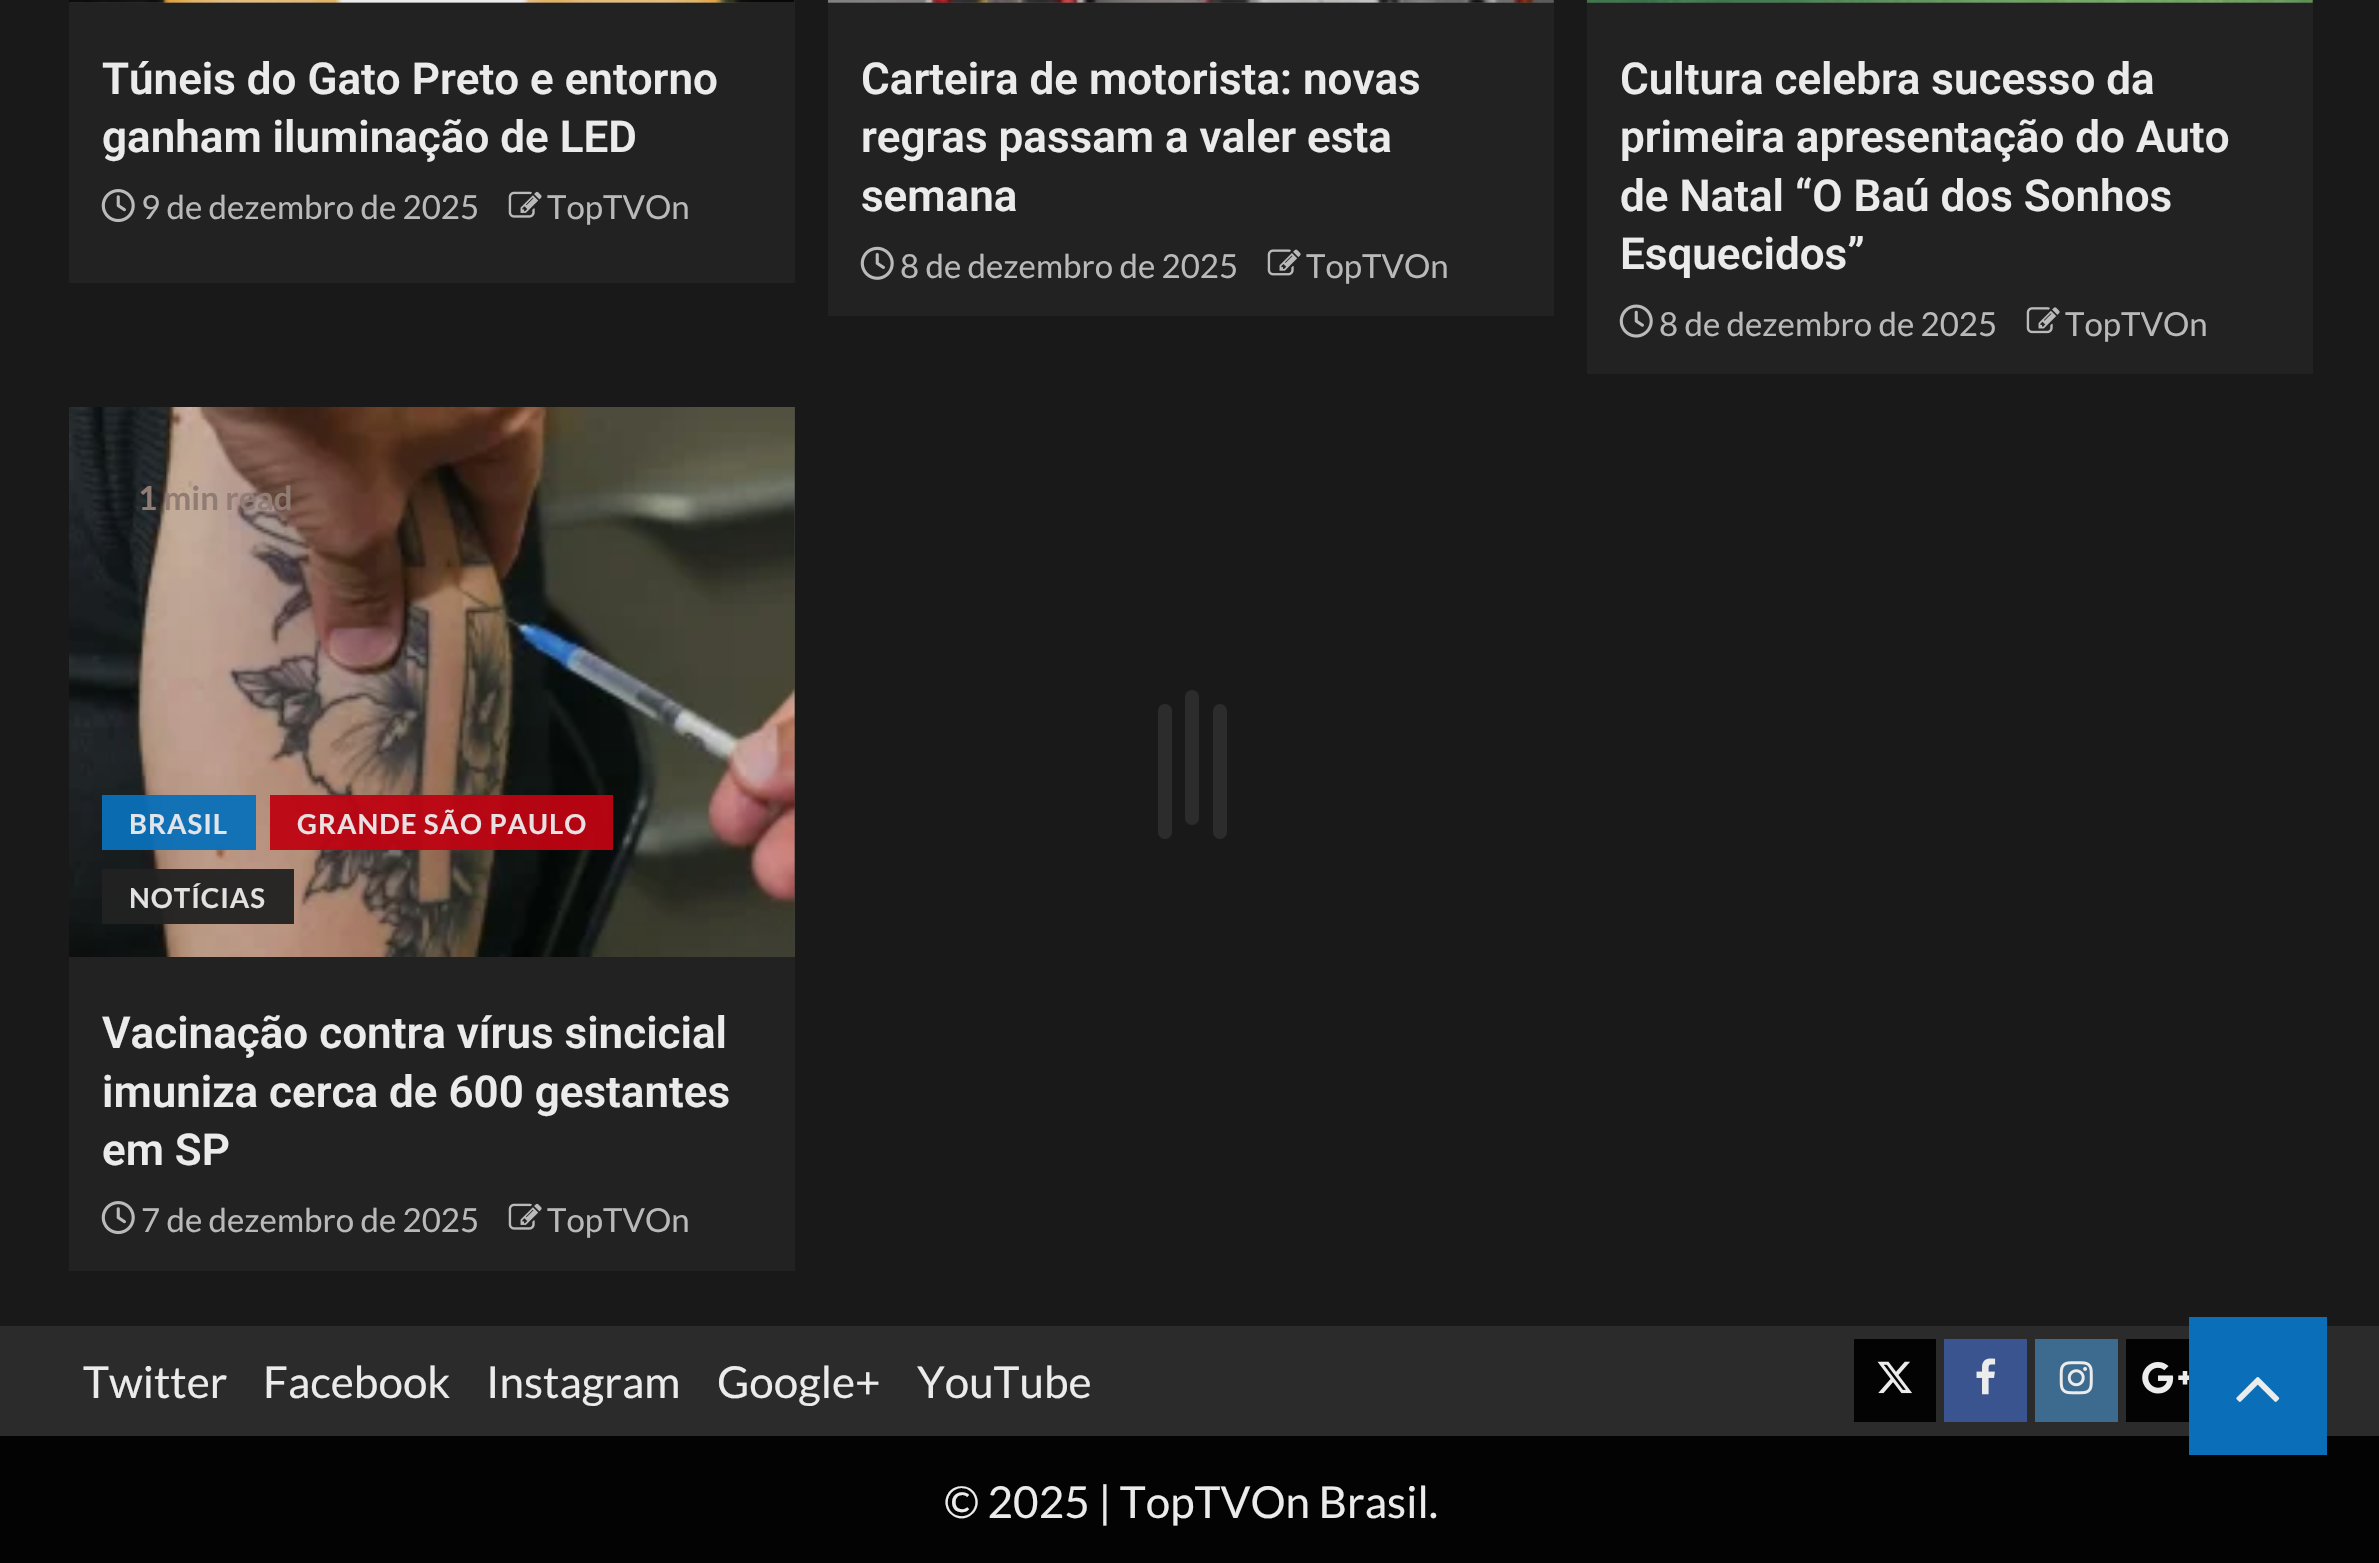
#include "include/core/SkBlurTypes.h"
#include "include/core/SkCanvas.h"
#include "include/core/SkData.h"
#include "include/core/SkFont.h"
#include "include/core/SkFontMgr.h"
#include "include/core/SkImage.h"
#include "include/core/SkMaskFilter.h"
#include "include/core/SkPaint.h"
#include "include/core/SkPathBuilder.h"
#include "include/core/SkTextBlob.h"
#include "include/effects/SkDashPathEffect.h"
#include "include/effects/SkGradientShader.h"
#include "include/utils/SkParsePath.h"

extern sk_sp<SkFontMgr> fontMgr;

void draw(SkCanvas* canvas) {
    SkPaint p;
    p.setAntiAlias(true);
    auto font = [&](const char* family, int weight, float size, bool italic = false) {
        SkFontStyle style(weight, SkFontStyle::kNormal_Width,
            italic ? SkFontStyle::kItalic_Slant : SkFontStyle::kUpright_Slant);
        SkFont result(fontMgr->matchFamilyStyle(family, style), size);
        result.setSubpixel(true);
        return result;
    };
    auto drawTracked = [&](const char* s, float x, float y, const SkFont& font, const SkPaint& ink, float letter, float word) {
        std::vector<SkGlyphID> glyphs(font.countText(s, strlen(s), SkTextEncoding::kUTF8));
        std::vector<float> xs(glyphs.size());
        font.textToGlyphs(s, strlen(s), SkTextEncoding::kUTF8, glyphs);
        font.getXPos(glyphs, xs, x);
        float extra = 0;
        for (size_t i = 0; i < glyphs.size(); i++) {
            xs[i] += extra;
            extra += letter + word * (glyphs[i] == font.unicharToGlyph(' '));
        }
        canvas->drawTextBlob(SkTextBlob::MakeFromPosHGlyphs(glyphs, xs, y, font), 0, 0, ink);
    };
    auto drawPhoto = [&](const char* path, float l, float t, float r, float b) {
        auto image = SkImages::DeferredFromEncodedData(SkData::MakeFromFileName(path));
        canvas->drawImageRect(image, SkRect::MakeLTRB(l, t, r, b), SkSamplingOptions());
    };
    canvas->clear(0xFF191919);
    p.setColor(0xFF414141);
    canvas->drawRect(SkRect::MakeLTRB(69, 0, 795, 3), p);
    drawPhoto("media/1.png", 69, 0, 795, 3);
    p.setColor(0xFF222222);
    canvas->drawRect(SkRect::MakeLTRB(69, 3, 795, 283), p);
    auto font1 = font("Roboto", 600, 44);
    p.setColor(0xFFEBEBEB);
    canvas->drawString("Túneis do Gato Preto e entorno", 102, 94, font1, p);
    canvas->drawString("ganham iluminação de LED", 102, 152, font1, p);
    drawPhoto("media/2.png", 101, 189, 135, 223);
    auto font2 = font("Lato", 400, 33);
    p.setColor(0xFFB9B9B9);
    canvas->drawString("9 de dezembro de 2025", 141, 219, font2, p);
    drawPhoto("media/3.png", 508, 191, 542, 218);
    canvas->drawString("TopTVOn", 547, 219, font2, p);
    p.setColor(0xFF414141);
    canvas->drawRect(SkRect::MakeLTRB(828, 0, 1554, 3), p);
    drawPhoto("media/4.png", 827, 0, 1554, 3);
    p.setColor(0xFF222222);
    canvas->drawRect(SkRect::MakeLTRB(828, 3, 1554, 316), p);
    p.setColor(0xFFEBEBEB);
    {
        const struct { const char* s; float x, y; } items[] = {
            {"Carteira de motorista: novas", 861, 94},
            {"regras passam a valer esta", 861, 152},
            {"semana", 861, 211},
        };
        for (auto [s, x, y] : items) {
            canvas->drawString(s, x, y, font1, p);
        }
    }
    drawPhoto("media/5.png", 860, 246, 894, 280);
    p.setColor(0xFFB9B9B9);
    canvas->drawString("8 de dezembro de 2025", 900, 278, font2, p);
    drawPhoto("media/6.png", 1267, 249, 1301, 276);
    canvas->drawString("TopTVOn", 1306, 278, font2, p);
    p.setColor(0xFF414141);
    canvas->drawRect(SkRect::MakeLTRB(1587, 0, 2313, 3), p);
    drawPhoto("media/7.png", 1586, 0, 2313, 3);
    p.setColor(0xFF222222);
    canvas->drawRect(SkRect::MakeLTRB(1587, 3, 2313, 374), p);
    p.setColor(0xFFEBEBEB);
    {
        const struct { const char* s; float x, y; } items[] = {
            {"Cultura celebra sucesso da", 1620, 94},
            {"primeira apresentação do Auto", 1620, 152},
            {"de Natal “O Baú dos Sonhos", 1620, 211},
            {"Esquecidos”", 1620, 269},
        };
        for (auto [s, x, y] : items) {
            canvas->drawString(s, x, y, font1, p);
        }
    }
    drawPhoto("media/8.png", 1619, 304, 1653, 338);
    p.setColor(0xFFB9B9B9);
    canvas->drawString("8 de dezembro de 2025", 1659, 336, font2, p);
    drawPhoto("media/9.png", 2026, 307, 2060, 334);
    canvas->drawString("TopTVOn", 2065, 336, font2, p);
    p.setColor(0xFF414141);
    canvas->drawRect(SkRect::MakeLTRB(794, 407, 795, 957), p);
    drawPhoto("media/10.png", 69, 407, 795, 957);
    auto font3 = font("Lato", 700, 33);
    p.setColor(0xFF907C72);
    canvas->drawString("1 min read", 138, 510, font3, p);
    p.setColor(0xF20A6FB8);
    canvas->drawRect(SkRect::MakeLTRB(102, 795, 256, 850), p);
    auto font4 = font("Lato", 700, 27.5f);
    p.setColor(0xFFE1E5E9);
    drawTracked("BRASIL", 129, 834, font4, p, 1, 0);
    p.setColor(0xF2BD0312);
    canvas->drawRect(SkRect::MakeLTRB(270, 795, 613, 850), p);
    p.setColor(0xFFE9E0E1);
    drawTracked("GRANDE SÃO PAULO", 297, 834, font4, p, 1, 0);
    p.setColor(0xF2212121);
    canvas->drawRect(SkRect::MakeLTRB(102, 869, 294, 924), p);
    p.setColor(0xFFE1E1E1);
    drawTracked("NOTÍCIAS", 129, 908, font4, p, 1, 0);
    p.setColor(0xFF222222);
    canvas->drawRect(SkRect::MakeLTRB(69, 957, 795, 1271), p);
    p.setColor(0xFFEBEBEB);
    {
        const struct { const char* s; float x, y; } items[] = {
            {"Vacinação contra vírus sincicial", 102, 1048},
            {"imuniza cerca de 600 gestantes", 102, 1107},
            {"em SP", 102, 1165},
        };
        for (auto [s, x, y] : items) {
            canvas->drawString(s, x, y, font1, p);
        }
    }
    drawPhoto("media/2.png", 101, 1201, 135, 1235);
    p.setColor(0xFFB9B9B9);
    canvas->drawString("7 de dezembro de 2025", 141, 1232, font2, p);
    drawPhoto("media/3.png", 508, 1203, 542, 1230);
    canvas->drawString("TopTVOn", 547, 1232, font2, p);
    p.setColor(0xFF2B2B2B);
    canvas->drawRect(SkRect::MakeLTRB(0, 1326, 2379, 1436), p);
    auto font5 = font("Lato", 400, 44);
    p.setColor(0xFFEBEBEB);
    {
        const struct { const char* s; float x, y; } items[] = {
            {"Twitter", 83, 1398},
            {"Facebook", 263, 1398},
            {"Instagram", 486, 1398},
            {"Google+", 717, 1398},
            {"YouTube", 917, 1398},
        };
        for (auto [s, x, y] : items) {
            canvas->drawString(s, x, y, font5, p);
        }
    }
    p.setColor(0xFF030303);
    canvas->drawRect(SkRect::MakeLTRB(1854, 1339, 1936, 1422), p);
    drawPhoto("media/11.png", 1877, 1361, 1912, 1394);
    p.setColor(0xFF39548F);
    canvas->drawRect(SkRect::MakeLTRB(1944, 1339, 2027, 1422), p);
    drawPhoto("media/12.png", 1976, 1358, 1996, 1395);
    p.setColor(0xFF3D6B90);
    canvas->drawRect(SkRect::MakeLTRB(2035, 1339, 2118, 1422), p);
    drawPhoto("media/13.png", 2059, 1361, 2093, 1395);
    p.setColor(0xFF030303);
    canvas->drawRect(SkRect::MakeLTRB(2126, 1339, 2189, 1422), p);
    drawPhoto("media/14.png", 2142, 1362, 2189, 1394);
    canvas->drawRect(SkRect::MakeLTRB(0, 1436, 2379, 1563), p);
    p.setColor(0xFFEBEBEB);
    canvas->drawString("© 2025 | TopTVOn Brasil.", 944, 1518, font5, p);
    p.setColor(0xFF2C2C2C);
    canvas->drawRoundRect(SkRect::MakeLTRB(1185, 690, 1199, 825), 7, 7, p);
    canvas->drawRoundRect(SkRect::MakeLTRB(1158, 704, 1172, 839), 7, 7, p);
    canvas->drawRoundRect(SkRect::MakeLTRB(1213, 704, 1227, 839), 7, 7, p);
    p.setColor(0xFF0A6FB8);
    canvas->drawRect(SkRect::MakeLTRB(2189, 1317, 2327, 1455), p);
    drawPhoto("media/15.png", 2236, 1377, 2280, 1402);
}
